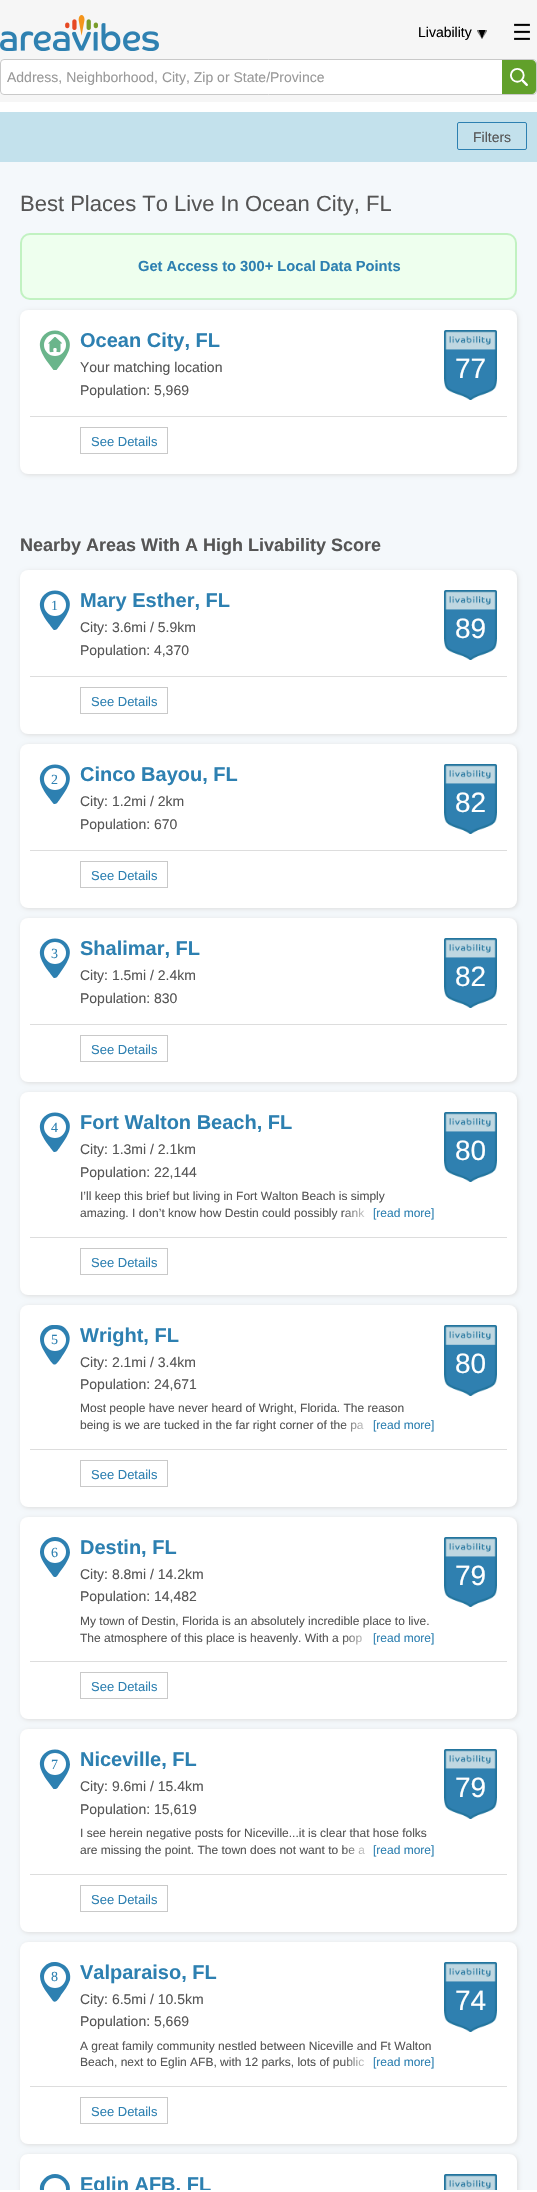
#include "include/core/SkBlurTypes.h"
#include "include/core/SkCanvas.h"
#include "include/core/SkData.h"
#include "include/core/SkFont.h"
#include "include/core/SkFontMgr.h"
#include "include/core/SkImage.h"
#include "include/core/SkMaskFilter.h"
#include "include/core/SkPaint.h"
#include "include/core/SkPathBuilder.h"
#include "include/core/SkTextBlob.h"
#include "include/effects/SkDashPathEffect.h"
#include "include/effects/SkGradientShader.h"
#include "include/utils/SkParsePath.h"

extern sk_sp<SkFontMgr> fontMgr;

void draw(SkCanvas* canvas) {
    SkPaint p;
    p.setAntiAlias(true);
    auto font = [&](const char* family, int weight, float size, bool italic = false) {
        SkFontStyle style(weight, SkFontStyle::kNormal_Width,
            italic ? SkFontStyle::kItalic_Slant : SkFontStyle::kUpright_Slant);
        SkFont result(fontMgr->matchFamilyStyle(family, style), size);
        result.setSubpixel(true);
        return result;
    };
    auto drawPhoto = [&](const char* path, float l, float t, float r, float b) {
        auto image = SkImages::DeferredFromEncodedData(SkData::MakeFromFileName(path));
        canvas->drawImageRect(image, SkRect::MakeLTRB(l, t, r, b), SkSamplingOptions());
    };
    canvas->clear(0xFFFFFFFF);
    p.setColor(0xFFF6F6F6);
    canvas->drawRect(SkRect::MakeLTRB(0, 0, 537, 102), p);
    drawPhoto("media/1.png", 0, 15, 159, 51);
    drawPhoto("media/2.png", 477, 30, 487, 39);
    auto font1 = font("Liberation Sans", 400, 14);
    p.setColor(0xFF000000);
    canvas->drawString("Livability", 418, 37, font1, p);
    drawPhoto("media/3.png", 514, 23, 530, 40);
    p.setColor(0xFFFFFFFF);
    canvas->drawRoundRect(SkRect::MakeLTRB(0, 59, 537, 95), 4, 4, p);
    p.setStyle(SkPaint::kStroke_Style);
    p.setStrokeWidth(1);
    p.setColor(0xCCBBBBBB);
    canvas->drawRoundRect(SkRect::MakeLTRB(0.5f, 59.5f, 536.5f, 94.5f), 3.5f, 3.5f, p);
    p.setStyle(SkPaint::kFill_Style);
    p.setColor(0xFF999999);
    canvas->drawString("Address, Neighborhood, City, Zip or State/Province", 7, 82, font1, p);
    p.setColor(0xFF61A02A);
    canvas->drawPath(SkPathBuilder().moveTo(502, 60).lineTo(532, 60).cubicTo(534, 60, 536, 62, 536, 64).lineTo(536, 90).cubicTo(536, 92, 534, 94, 532, 94).lineTo(502, 94).close().detach(), p);
    drawPhoto("media/4.png", 510, 68, 528, 86);
    p.setColor(0xFFC3E1EC);
    canvas->drawRect(SkRect::MakeLTRB(0, 112, 537, 162), p);
    p.setStyle(SkPaint::kStroke_Style);
    p.setColor(0xFF2D80B1);
    canvas->drawRoundRect(SkRect::MakeLTRB(457.5f, 122.5f, 526.5f, 149.5f), 1.5f, 1.5f, p);
    p.setStyle(SkPaint::kFill_Style);
    p.setColor(0xFF555555);
    canvas->drawString("Filters", 473, 142, font1, p);
    p.setColor(0xFFF4F8FB);
    canvas->drawRect(SkRect::MakeLTRB(0, 162, 537, 2190), p);
    auto font2 = font("Liberation Sans", 400, 22);
    p.setColor(0xFF555555);
    canvas->drawString("Best Places To Live In Ocean City, FL", 20, 211, font2, p);
    p.setColor(0xFFEEFFEE);
    canvas->drawRoundRect(SkRect::MakeLTRB(21, 234, 516, 299), 9, 9, p);
    p.setStyle(SkPaint::kStroke_Style);
    p.setStrokeWidth(2);
    p.setColor(0xFFC1F2C1);
    canvas->drawRoundRect(SkRect::MakeLTRB(21, 234, 516, 299), 9, 9, p);
    auto font3 = font("Liberation Sans", 700, 14.7f);
    p.setStyle(SkPaint::kFill_Style);
    p.setColor(0xFF2D80B1);
    canvas->drawString("Get Access to 300+ Local Data Points", 138, 271, font3, p);
    p.setColor(0xFFDDDDDD);
    p.setMaskFilter(SkMaskFilter::MakeBlur(kNormal_SkBlurStyle, 2));
    canvas->drawRoundRect(SkRect::MakeLTRB(21, 311, 518, 475), 8, 8, p);
    p.setMaskFilter(nullptr);
    p.setColor(0xFFFFFFFF);
    canvas->drawRoundRect(SkRect::MakeLTRB(20, 310, 517, 474), 8, 8, p);
    p.setColor(0xFF6AB58B);
    canvas->drawPath(SkPathBuilder().moveTo(55, 330.5f).cubicTo(59, 330.5f, 63, 332, 65.5f, 335).cubicTo(75, 344.5f, 67, 355.5f, 61, 364).lineTo(56.5f, 370).lineTo(53.5f, 370).lineTo(49, 364).cubicTo(43, 355.5f, 34.5f, 344, 44.5f, 334.5f).cubicTo(47.5f, 332, 51, 330.5f, 55, 330.5f).close().detach(), p);
    p.setColor(0xFFFFFFFF);
    canvas->drawCircle(55, 345, 11, p);
    p.setColor(0xFF6AB58B);
    canvas->drawPath(SkPathBuilder().moveTo(53.5f, 352).cubicTo(50.5f, 352, 49.5f, 353, 49.5f, 350).lineTo(49.5f, 343.5f).lineTo(48.5f, 343.5f).cubicTo(48, 343.5f, 48, 343, 48.5f, 343).lineTo(54.5f, 337).cubicTo(55, 337, 55.5f, 337, 55.5f, 337).lineTo(62, 343).cubicTo(62, 343, 62, 343.5f, 62, 343.5f).lineTo(60.5f, 343.5f).lineTo(60.5f, 350).cubicTo(60.5f, 353, 59.5f, 352, 56.5f, 352).cubicTo(56.5f, 350, 57.5f, 348, 55, 348).cubicTo(52.5f, 348, 53.5f, 350, 53.5f, 352).close().detach(), p);
    auto font4 = font("Liberation Sans", 700, 20);
    p.setColor(0xFF2D80B1);
    canvas->drawString("Ocean City, FL", 80, 347, font4, p);
    p.setColor(0xFF555555);
    canvas->drawString("Your matching location", 80, 372, font1, p);
    canvas->drawString("Population: 5,969", 80, 395, font1, p);
    drawPhoto("media/5.png", 444, 330, 497, 400);
    auto font5 = font("Liberation Sans", 400, 28);
    p.setColor(0xFFFFFFFF);
    canvas->drawString("77", 455, 378, font5, p);
    p.setColor(0xFFDDDDDD);
    canvas->drawRect(SkRect::MakeLTRB(30, 416, 507, 417), p);
    p.setStyle(SkPaint::kStroke_Style);
    p.setStrokeWidth(1);
    p.setColor(0xFFC9C9C9);
    canvas->drawRect(SkRect::MakeLTRB(80.5f, 427.5f, 167.5f, 453.5f), p);
    auto font6 = font("Liberation Sans", 400, 13);
    p.setStyle(SkPaint::kFill_Style);
    p.setColor(0xFF2D80B1);
    canvas->drawString("See Details", 91, 446, font6, p);
    auto font7 = font("Liberation Sans", 700, 18);
    p.setColor(0xFF555555);
    canvas->drawString("Nearby Areas With A High Livability Score", 20, 551, font7, p);
    p.setColor(0xFFDDDDDD);
    p.setMaskFilter(SkMaskFilter::MakeBlur(kNormal_SkBlurStyle, 2));
    canvas->drawRoundRect(SkRect::MakeLTRB(21, 571, 518, 735), 8, 8, p);
    p.setMaskFilter(nullptr);
    p.setColor(0xFFFFFFFF);
    canvas->drawRoundRect(SkRect::MakeLTRB(20, 570, 517, 734), 8, 8, p);
    p.setColor(0xFF2D80B1);
    canvas->drawPath(SkPathBuilder().moveTo(55, 590.5f).cubicTo(59, 590.5f, 63, 592, 65.5f, 594.5f).cubicTo(75, 604, 67, 615, 61, 623.5f).lineTo(59, 626.5f).cubicTo(57, 629, 57, 630, 54, 630).cubicTo(53, 630, 49.5f, 624, 49, 624).cubicTo(43, 615.5f, 34.5f, 604, 44.5f, 594.5f).cubicTo(47.5f, 592, 51, 590.5f, 55, 590.5f).close().detach(), p);
    p.setColor(0xFFFFFFFF);
    canvas->drawCircle(55, 605, 11, p);
    auto font8 = font("Liberation Serif", 400, 14);
    p.setColor(0xFF2D80B1);
    canvas->drawString("1", 51, 610, font8, p);
    canvas->drawString("Mary Esther, FL", 80, 607, font4, p);
    p.setColor(0xFF555555);
    canvas->drawString("City: 3.6mi / 5.9km", 80, 632, font1, p);
    canvas->drawString("Population: 4,370", 80, 655, font1, p);
    drawPhoto("media/6.png", 444, 590, 497, 660);
    p.setColor(0xFFFFFFFF);
    canvas->drawString("89", 455, 638, font5, p);
    p.setColor(0xFFDDDDDD);
    canvas->drawRect(SkRect::MakeLTRB(30, 676, 507, 677), p);
    p.setStyle(SkPaint::kStroke_Style);
    p.setColor(0xFFC9C9C9);
    canvas->drawRect(SkRect::MakeLTRB(80.5f, 687.5f, 167.5f, 713.5f), p);
    p.setStyle(SkPaint::kFill_Style);
    p.setColor(0xFF2D80B1);
    canvas->drawString("See Details", 91, 706, font6, p);
    p.setColor(0xFFDDDDDD);
    p.setMaskFilter(SkMaskFilter::MakeBlur(kNormal_SkBlurStyle, 2));
    canvas->drawRoundRect(SkRect::MakeLTRB(21, 745, 518, 909), 8, 8, p);
    p.setMaskFilter(nullptr);
    p.setColor(0xFFFFFFFF);
    canvas->drawRoundRect(SkRect::MakeLTRB(20, 744, 517, 908), 8, 8, p);
    p.setColor(0xFF2D80B1);
    canvas->drawPath(SkPathBuilder().moveTo(55, 764.5f).cubicTo(59, 764.5f, 63, 766, 65.5f, 768.5f).cubicTo(75, 778, 67, 789, 61, 797.5f).lineTo(59, 800.5f).cubicTo(57, 803, 57, 804, 54, 804).cubicTo(53, 804, 49.5f, 798, 49, 798).cubicTo(43, 789.5f, 34.5f, 778, 44.5f, 768.5f).cubicTo(47.5f, 766, 51, 764.5f, 55, 764.5f).close().detach(), p);
    p.setColor(0xFFFFFFFF);
    canvas->drawCircle(55, 779, 11, p);
    p.setColor(0xFF2D80B1);
    canvas->drawString("2", 51, 784, font8, p);
    canvas->drawString("Cinco Bayou, FL", 80, 781, font4, p);
    p.setColor(0xFF555555);
    canvas->drawString("City: 1.2mi / 2km", 80, 806, font1, p);
    canvas->drawString("Population: 670", 80, 829, font1, p);
    drawPhoto("media/6.png", 444, 764, 497, 834);
    p.setColor(0xFFFFFFFF);
    canvas->drawString("82", 455, 812, font5, p);
    p.setColor(0xFFDDDDDD);
    canvas->drawRect(SkRect::MakeLTRB(30, 850, 507, 851), p);
    p.setStyle(SkPaint::kStroke_Style);
    p.setColor(0xFFC9C9C9);
    canvas->drawRect(SkRect::MakeLTRB(80.5f, 861.5f, 167.5f, 887.5f), p);
    p.setStyle(SkPaint::kFill_Style);
    p.setColor(0xFF2D80B1);
    canvas->drawString("See Details", 91, 880, font6, p);
    p.setColor(0xFFDDDDDD);
    p.setMaskFilter(SkMaskFilter::MakeBlur(kNormal_SkBlurStyle, 2));
    canvas->drawRoundRect(SkRect::MakeLTRB(21, 919, 518, 1083), 8, 8, p);
    p.setMaskFilter(nullptr);
    p.setColor(0xFFFFFFFF);
    canvas->drawRoundRect(SkRect::MakeLTRB(20, 918, 517, 1082), 8, 8, p);
    p.setColor(0xFF2D80B1);
    canvas->drawPath(SkPathBuilder().moveTo(55, 938.5f).cubicTo(59, 938.5f, 63, 940, 65.5f, 942.5f).cubicTo(75, 952, 67, 963, 61, 971.5f).lineTo(59, 974.5f).cubicTo(57, 977, 57, 978, 54, 978).cubicTo(53, 978, 49.5f, 972, 49, 972).cubicTo(43, 963.5f, 34.5f, 952, 44.5f, 942.5f).cubicTo(47.5f, 940, 51, 938.5f, 55, 938.5f).close().detach(), p);
    p.setColor(0xFFFFFFFF);
    canvas->drawCircle(55, 953, 11, p);
    p.setColor(0xFF2D80B1);
    canvas->drawString("3", 51, 958, font8, p);
    canvas->drawString("Shalimar, FL", 80, 955, font4, p);
    p.setColor(0xFF555555);
    canvas->drawString("City: 1.5mi / 2.4km", 80, 980, font1, p);
    canvas->drawString("Population: 830", 80, 1003, font1, p);
    drawPhoto("media/6.png", 444, 938, 497, 1008);
    p.setColor(0xFFFFFFFF);
    canvas->drawString("82", 455, 986, font5, p);
    p.setColor(0xFFDDDDDD);
    canvas->drawRect(SkRect::MakeLTRB(30, 1024, 507, 1025), p);
    p.setStyle(SkPaint::kStroke_Style);
    p.setColor(0xFFC9C9C9);
    canvas->drawRect(SkRect::MakeLTRB(80.5f, 1035.5f, 167.5f, 1061.5f), p);
    p.setStyle(SkPaint::kFill_Style);
    p.setColor(0xFF2D80B1);
    canvas->drawString("See Details", 91, 1054, font6, p);
    p.setColor(0xFFDDDDDD);
    p.setMaskFilter(SkMaskFilter::MakeBlur(kNormal_SkBlurStyle, 2));
    canvas->drawRoundRect(SkRect::MakeLTRB(21, 1093, 518, 1296), 8, 8, p);
    p.setMaskFilter(nullptr);
    p.setColor(0xFFFFFFFF);
    canvas->drawRoundRect(SkRect::MakeLTRB(20, 1092, 517, 1295), 8, 8, p);
    p.setColor(0xFF2D80B1);
    canvas->drawPath(SkPathBuilder().moveTo(55, 1112.5f).cubicTo(59, 1112.5f, 63, 1114, 65.5f, 1116.5f).cubicTo(75, 1126, 67, 1137, 61, 1145.5f).lineTo(59, 1148.5f).cubicTo(57, 1151, 57, 1152, 54, 1152).cubicTo(53, 1152, 49.5f, 1146, 49, 1146).cubicTo(43, 1137.5f, 34.5f, 1126, 44.5f, 1116.5f).cubicTo(47.5f, 1114, 51, 1112.5f, 55, 1112.5f).close().detach(), p);
    p.setColor(0xFFFFFFFF);
    canvas->drawCircle(55, 1127, 11, p);
    p.setColor(0xFF2D80B1);
    canvas->drawString("4", 51, 1132, font8, p);
    canvas->drawString("Fort Walton Beach, FL", 80, 1129, font4, p);
    p.setColor(0xFF555555);
    canvas->drawString("City: 1.3mi / 2.1km", 80, 1154, font1, p);
    canvas->drawString("Population: 22,144", 80, 1177, font1, p);
    auto font9 = font("Liberation Sans", 400, 12);
    canvas->drawString("I’ll keep this brief but living in Fort Walton Beach is simply", 80, 1200, font9, p);
    canvas->drawString("amazing. I don’t know how Destin could possibly rank", 80, 1217, font9, p);
    {
        const SkColor colors[] = {0x00FFFFFF, 0xE6FFFFFF, 0xFFFFFFFF};
        const float stops[] = {0, 0.31f, 0.33f};
        const SkPoint ends[] = {{343, 1214}, {434, 1214}};
        p.setShader(SkGradientShader::MakeLinear(ends, colors, stops, 3, SkTileMode::kClamp));
        p.setAlpha(255);
    }
    canvas->drawRect(SkRect::MakeLTRB(345, 1208, 364, 1217), p);
    p.setShader(nullptr);
    p.setColor(0xFF2D80B1);
    canvas->drawString("[read more]", 373, 1217, font9, p);
    drawPhoto("media/6.png", 444, 1112, 497, 1182);
    p.setColor(0xFFFFFFFF);
    canvas->drawString("80", 455, 1160, font5, p);
    p.setColor(0xFFDDDDDD);
    canvas->drawRect(SkRect::MakeLTRB(30, 1237, 507, 1238), p);
    p.setStyle(SkPaint::kStroke_Style);
    p.setColor(0xFFC9C9C9);
    canvas->drawRect(SkRect::MakeLTRB(80.5f, 1248.5f, 167.5f, 1274.5f), p);
    p.setStyle(SkPaint::kFill_Style);
    p.setColor(0xFF2D80B1);
    canvas->drawString("See Details", 91, 1267, font6, p);
    p.setColor(0xFFDDDDDD);
    p.setMaskFilter(SkMaskFilter::MakeBlur(kNormal_SkBlurStyle, 2));
    canvas->drawRoundRect(SkRect::MakeLTRB(21, 1306, 518, 1508), 8, 8, p);
    p.setMaskFilter(nullptr);
    p.setColor(0xFFFFFFFF);
    canvas->drawRoundRect(SkRect::MakeLTRB(20, 1305, 517, 1507), 8, 8, p);
    p.setColor(0xFF2D80B1);
    canvas->drawPath(SkPathBuilder().moveTo(40, 1339).cubicTo(40, 1332, 45, 1326, 52, 1325).lineTo(57, 1325).cubicTo(60, 1325, 63, 1326, 65, 1328).cubicTo(75, 1338, 67, 1349, 61, 1358).cubicTo(54, 1368, 54, 1366, 47, 1356).cubicTo(44, 1351, 40, 1345, 40, 1339).close().detach(), p);
    p.setColor(0xFFFFFFFF);
    canvas->drawCircle(55, 1340, 11, p);
    p.setColor(0xFF2D80B1);
    canvas->drawString("5", 51, 1344, font8, p);
    canvas->drawString("Wright, FL", 80, 1342, font4, p);
    p.setColor(0xFF555555);
    canvas->drawString("City: 2.1mi / 3.4km", 80, 1367, font1, p);
    canvas->drawString("Population: 24,671", 80, 1389, font1, p);
    canvas->drawString("Most people have never heard of Wright, Florida. The reason", 80, 1412, font9, p);
    canvas->drawString("being is we are tucked in the far right corner of the pa", 80, 1429, font9, p);
    {
        const SkColor colors[] = {0x00FFFFFF, 0xE6FFFFFF, 0xFFFFFFFF};
        const float stops[] = {0, 0.31f, 0.33f};
        const SkPoint ends[] = {{343, 1426}, {434, 1426}};
        p.setShader(SkGradientShader::MakeLinear(ends, colors, stops, 3, SkTileMode::kClamp));
        p.setAlpha(255);
    }
    canvas->drawRect(SkRect::MakeLTRB(344, 1422, 364, 1432), p);
    p.setShader(nullptr);
    p.setColor(0xFF2D80B1);
    canvas->drawString("[read more]", 373, 1429, font9, p);
    drawPhoto("media/7.png", 444, 1325, 497, 1396);
    p.setColor(0xFFFFFFFF);
    canvas->drawString("80", 455, 1373, font5, p);
    p.setColor(0xFFDDDDDD);
    canvas->drawRect(SkRect::MakeLTRB(30, 1449, 507, 1450), p);
    p.setStyle(SkPaint::kStroke_Style);
    p.setColor(0xFFC9C9C9);
    canvas->drawRect(SkRect::MakeLTRB(80.5f, 1460.5f, 167.5f, 1486.5f), p);
    p.setStyle(SkPaint::kFill_Style);
    p.setColor(0xFF2D80B1);
    canvas->drawString("See Details", 91, 1479, font6, p);
    p.setColor(0xFFDDDDDD);
    p.setMaskFilter(SkMaskFilter::MakeBlur(kNormal_SkBlurStyle, 2));
    canvas->drawRoundRect(SkRect::MakeLTRB(21, 1518, 518, 1720), 8, 8, p);
    p.setMaskFilter(nullptr);
    p.setColor(0xFFFFFFFF);
    canvas->drawRoundRect(SkRect::MakeLTRB(20, 1517, 517, 1719), 8, 8, p);
    p.setColor(0xFF2D80B1);
    canvas->drawPath(SkPathBuilder().moveTo(55, 1537).cubicTo(63.5f, 1537, 70, 1544, 70, 1552.5f).cubicTo(70, 1559.5f, 61.5f, 1569.5f, 57.5f, 1575.5f).cubicTo(56.5f, 1576.5f, 56, 1577, 55, 1577).lineTo(54.5f, 1577).cubicTo(54, 1577, 53.5f, 1576.5f, 53, 1576).cubicTo(49, 1570, 40.5f, 1560.5f, 40, 1553).lineTo(40, 1551.5f).cubicTo(40.5f, 1543.5f, 47, 1537, 55, 1537).close().detach(), p);
    p.setColor(0xFFFFFFFF);
    canvas->drawCircle(55, 1552, 11, p);
    p.setColor(0xFF2D80B1);
    canvas->drawString("6", 51, 1557, font8, p);
    canvas->drawString("Destin, FL", 80, 1554, font4, p);
    p.setColor(0xFF555555);
    canvas->drawString("City: 8.8mi / 14.2km", 80, 1579, font1, p);
    canvas->drawString("Population: 14,482", 80, 1601, font1, p);
    canvas->drawString("My town of Destin, Florida is an absolutely incredible place to live.", 80, 1625, font9, p);
    canvas->drawString("The atmosphere of this place is heavenly. With a pop", 80, 1642, font9, p);
    {
        const SkColor colors[] = {0x00FFFFFF, 0xE6FFFFFF, 0xFFFFFFFF};
        const float stops[] = {0, 0.31f, 0.33f};
        const SkPoint ends[] = {{343, 1638}, {434, 1638}};
        p.setShader(SkGradientShader::MakeLinear(ends, colors, stops, 3, SkTileMode::kClamp));
        p.setAlpha(255);
    }
    canvas->drawRect(SkRect::MakeLTRB(344, 1635, 362, 1645), p);
    p.setShader(nullptr);
    p.setColor(0xFF2D80B1);
    canvas->drawString("[read more]", 373, 1642, font9, p);
    drawPhoto("media/6.png", 444, 1537, 497, 1607);
    p.setColor(0xFFFFFFFF);
    canvas->drawString("79", 455, 1585, font5, p);
    p.setColor(0xFFDDDDDD);
    canvas->drawRect(SkRect::MakeLTRB(30, 1661, 507, 1662), p);
    p.setStyle(SkPaint::kStroke_Style);
    p.setColor(0xFFC9C9C9);
    canvas->drawRect(SkRect::MakeLTRB(80.5f, 1672.5f, 167.5f, 1698.5f), p);
    p.setStyle(SkPaint::kFill_Style);
    p.setColor(0xFF2D80B1);
    canvas->drawString("See Details", 91, 1691, font6, p);
    p.setColor(0xFFDDDDDD);
    p.setMaskFilter(SkMaskFilter::MakeBlur(kNormal_SkBlurStyle, 2));
    canvas->drawRoundRect(SkRect::MakeLTRB(21, 1730, 518, 1933), 8, 8, p);
    p.setMaskFilter(nullptr);
    p.setColor(0xFFFFFFFF);
    canvas->drawRoundRect(SkRect::MakeLTRB(20, 1729, 517, 1932), 8, 8, p);
    p.setColor(0xFF2D80B1);
    canvas->drawPath(SkPathBuilder().moveTo(55, 1749.5f).cubicTo(63.5f, 1749.5f, 70, 1756, 70, 1764.5f).cubicTo(70, 1772, 61.5f, 1782, 57.5f, 1788).lineTo(56, 1789).lineTo(53.5f, 1789).lineTo(49, 1783).cubicTo(43, 1774.5f, 34.5f, 1763, 44.5f, 1753.5f).cubicTo(47.5f, 1751, 51, 1749.5f, 55, 1749.5f).close().detach(), p);
    p.setColor(0xFFFFFFFF);
    canvas->drawCircle(55, 1764, 11, p);
    p.setColor(0xFF2D80B1);
    canvas->drawString("7", 51, 1769, font8, p);
    canvas->drawString("Niceville, FL", 80, 1766, font4, p);
    p.setColor(0xFF555555);
    canvas->drawString("City: 9.6mi / 15.4km", 80, 1791, font1, p);
    canvas->drawString("Population: 15,619", 80, 1814, font1, p);
    canvas->drawString("I see herein negative posts for Niceville...it is clear that hose folks", 80, 1837, font9, p);
    canvas->drawString("are missing the point. The town does not want to be a", 80, 1854, font9, p);
    {
        const SkColor colors[] = {0x00FFFFFF, 0xE6FFFFFF, 0xFFFFFFFF};
        const float stops[] = {0, 0.31f, 0.33f};
        const SkPoint ends[] = {{343, 1851}, {434, 1851}};
        p.setShader(SkGradientShader::MakeLinear(ends, colors, stops, 3, SkTileMode::kClamp));
        p.setAlpha(255);
    }
    canvas->drawRect(SkRect::MakeLTRB(344, 1847, 365, 1855), p);
    p.setShader(nullptr);
    p.setColor(0xFF2D80B1);
    canvas->drawString("[read more]", 373, 1854, font9, p);
    drawPhoto("media/6.png", 444, 1749, 497, 1819);
    p.setColor(0xFFFFFFFF);
    canvas->drawString("79", 455, 1797, font5, p);
    p.setColor(0xFFDDDDDD);
    canvas->drawRect(SkRect::MakeLTRB(30, 1874, 507, 1875), p);
    p.setStyle(SkPaint::kStroke_Style);
    p.setColor(0xFFC9C9C9);
    canvas->drawRect(SkRect::MakeLTRB(80.5f, 1885.5f, 167.5f, 1911.5f), p);
    p.setStyle(SkPaint::kFill_Style);
    p.setColor(0xFF2D80B1);
    canvas->drawString("See Details", 91, 1904, font6, p);
    p.setColor(0xFFDDDDDD);
    p.setMaskFilter(SkMaskFilter::MakeBlur(kNormal_SkBlurStyle, 2));
    canvas->drawRoundRect(SkRect::MakeLTRB(21, 1943, 518, 2145), 8, 8, p);
    p.setMaskFilter(nullptr);
    p.setColor(0xFFFFFFFF);
    canvas->drawRoundRect(SkRect::MakeLTRB(20, 1942, 517, 2144), 8, 8, p);
    p.setColor(0xFF2D80B1);
    canvas->drawPath(SkPathBuilder().moveTo(40, 1976).cubicTo(40, 1969, 47, 1962, 54, 1962).cubicTo(64, 1962, 72, 1970, 70, 1980).cubicTo(68, 1986, 64, 1991, 61, 1995).cubicTo(60, 1997, 56, 2004, 53, 2001).lineTo(45, 1990).cubicTo(42, 1985, 40, 1981, 40, 1976).close().detach(), p);
    p.setColor(0xFFFFFFFF);
    canvas->drawCircle(55, 1977, 11, p);
    p.setColor(0xFF2D80B1);
    canvas->drawString("8", 51, 1981, font8, p);
    canvas->drawString("Valparaiso, FL", 80, 1979, font4, p);
    p.setColor(0xFF555555);
    canvas->drawString("City: 6.5mi / 10.5km", 80, 2004, font1, p);
    canvas->drawString("Population: 5,669", 80, 2026, font1, p);
    canvas->drawString("A great family community nestled between Niceville and Ft Walton", 80, 2050, font9, p);
    canvas->drawString("Beach, next to Eglin AFB, with 12 parks, lots of public", 80, 2066, font9, p);
    {
        const SkColor colors[] = {0x00FFFFFF, 0xE6FFFFFF, 0xFFFFFFFF};
        const float stops[] = {0, 0.31f, 0.33f};
        const SkPoint ends[] = {{343, 2063}, {434, 2063}};
        p.setShader(SkGradientShader::MakeLinear(ends, colors, stops, 3, SkTileMode::kClamp));
        p.setAlpha(255);
    }
    canvas->drawRect(SkRect::MakeLTRB(344, 2057, 364, 2067), p);
    p.setShader(nullptr);
    p.setColor(0xFF2D80B1);
    canvas->drawString("[read more]", 373, 2066, font9, p);
    drawPhoto("media/5.png", 444, 1962, 497, 2032);
    p.setColor(0xFFFFFFFF);
    canvas->drawString("74", 455, 2010, font5, p);
    p.setColor(0xFFDDDDDD);
    canvas->drawRect(SkRect::MakeLTRB(30, 2086, 507, 2087), p);
    p.setStyle(SkPaint::kStroke_Style);
    p.setColor(0xFFC9C9C9);
    canvas->drawRect(SkRect::MakeLTRB(80.5f, 2097.5f, 167.5f, 2123.5f), p);
    p.setStyle(SkPaint::kFill_Style);
    p.setColor(0xFF2D80B1);
    canvas->drawString("See Details", 91, 2116, font6, p);
    canvas->save();
    canvas->clipRect(SkRect::MakeLTRB(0, 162, 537, 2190));
    p.setColor(0xFFDDDDDD);
    p.setMaskFilter(SkMaskFilter::MakeBlur(kNormal_SkBlurStyle, 2));
    canvas->drawRoundRect(SkRect::MakeLTRB(21, 2155, 518, 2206), 8, 8, p);
    p.setMaskFilter(nullptr);
    canvas->restore();
    p.setColor(0xFFFFFFFF);
    canvas->drawPath(SkPathBuilder().moveTo(28, 2154).lineTo(509, 2154).cubicTo(513.5f, 2154, 517, 2157.5f, 517, 2162).lineTo(517, 2190).lineTo(20, 2190).lineTo(20, 2162).cubicTo(20, 2157.5f, 23.5f, 2154, 28, 2154).close().detach(), p);
    canvas->save();
    canvas->clipRect(SkRect::MakeLTRB(0, 162, 537, 2190));
    p.setColor(0xFF2D80B1);
    canvas->drawPath(SkPathBuilder().moveTo(55, 2174).cubicTo(59, 2174, 63, 2176, 65.5f, 2178.5f).cubicTo(75, 2188, 67, 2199, 61, 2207.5f).lineTo(59, 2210).cubicTo(57.5f, 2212.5f, 57, 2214, 54, 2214).cubicTo(53, 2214, 49.5f, 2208, 49, 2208).cubicTo(43, 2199, 34.5f, 2188, 44.5f, 2178.5f).cubicTo(47.5f, 2175.5f, 51, 2174, 55, 2174).close().detach(), p);
    p.setColor(0xFFFFFFFF);
    canvas->drawCircle(55, 2189, 11, p);
    p.setColor(0xFF2D80B1);
    canvas->drawString("Eglin AFB, FL", 80, 2191, font4, p);
    canvas->restore();
    drawPhoto("media/8.png", 444, 2174, 497, 2190);
}
